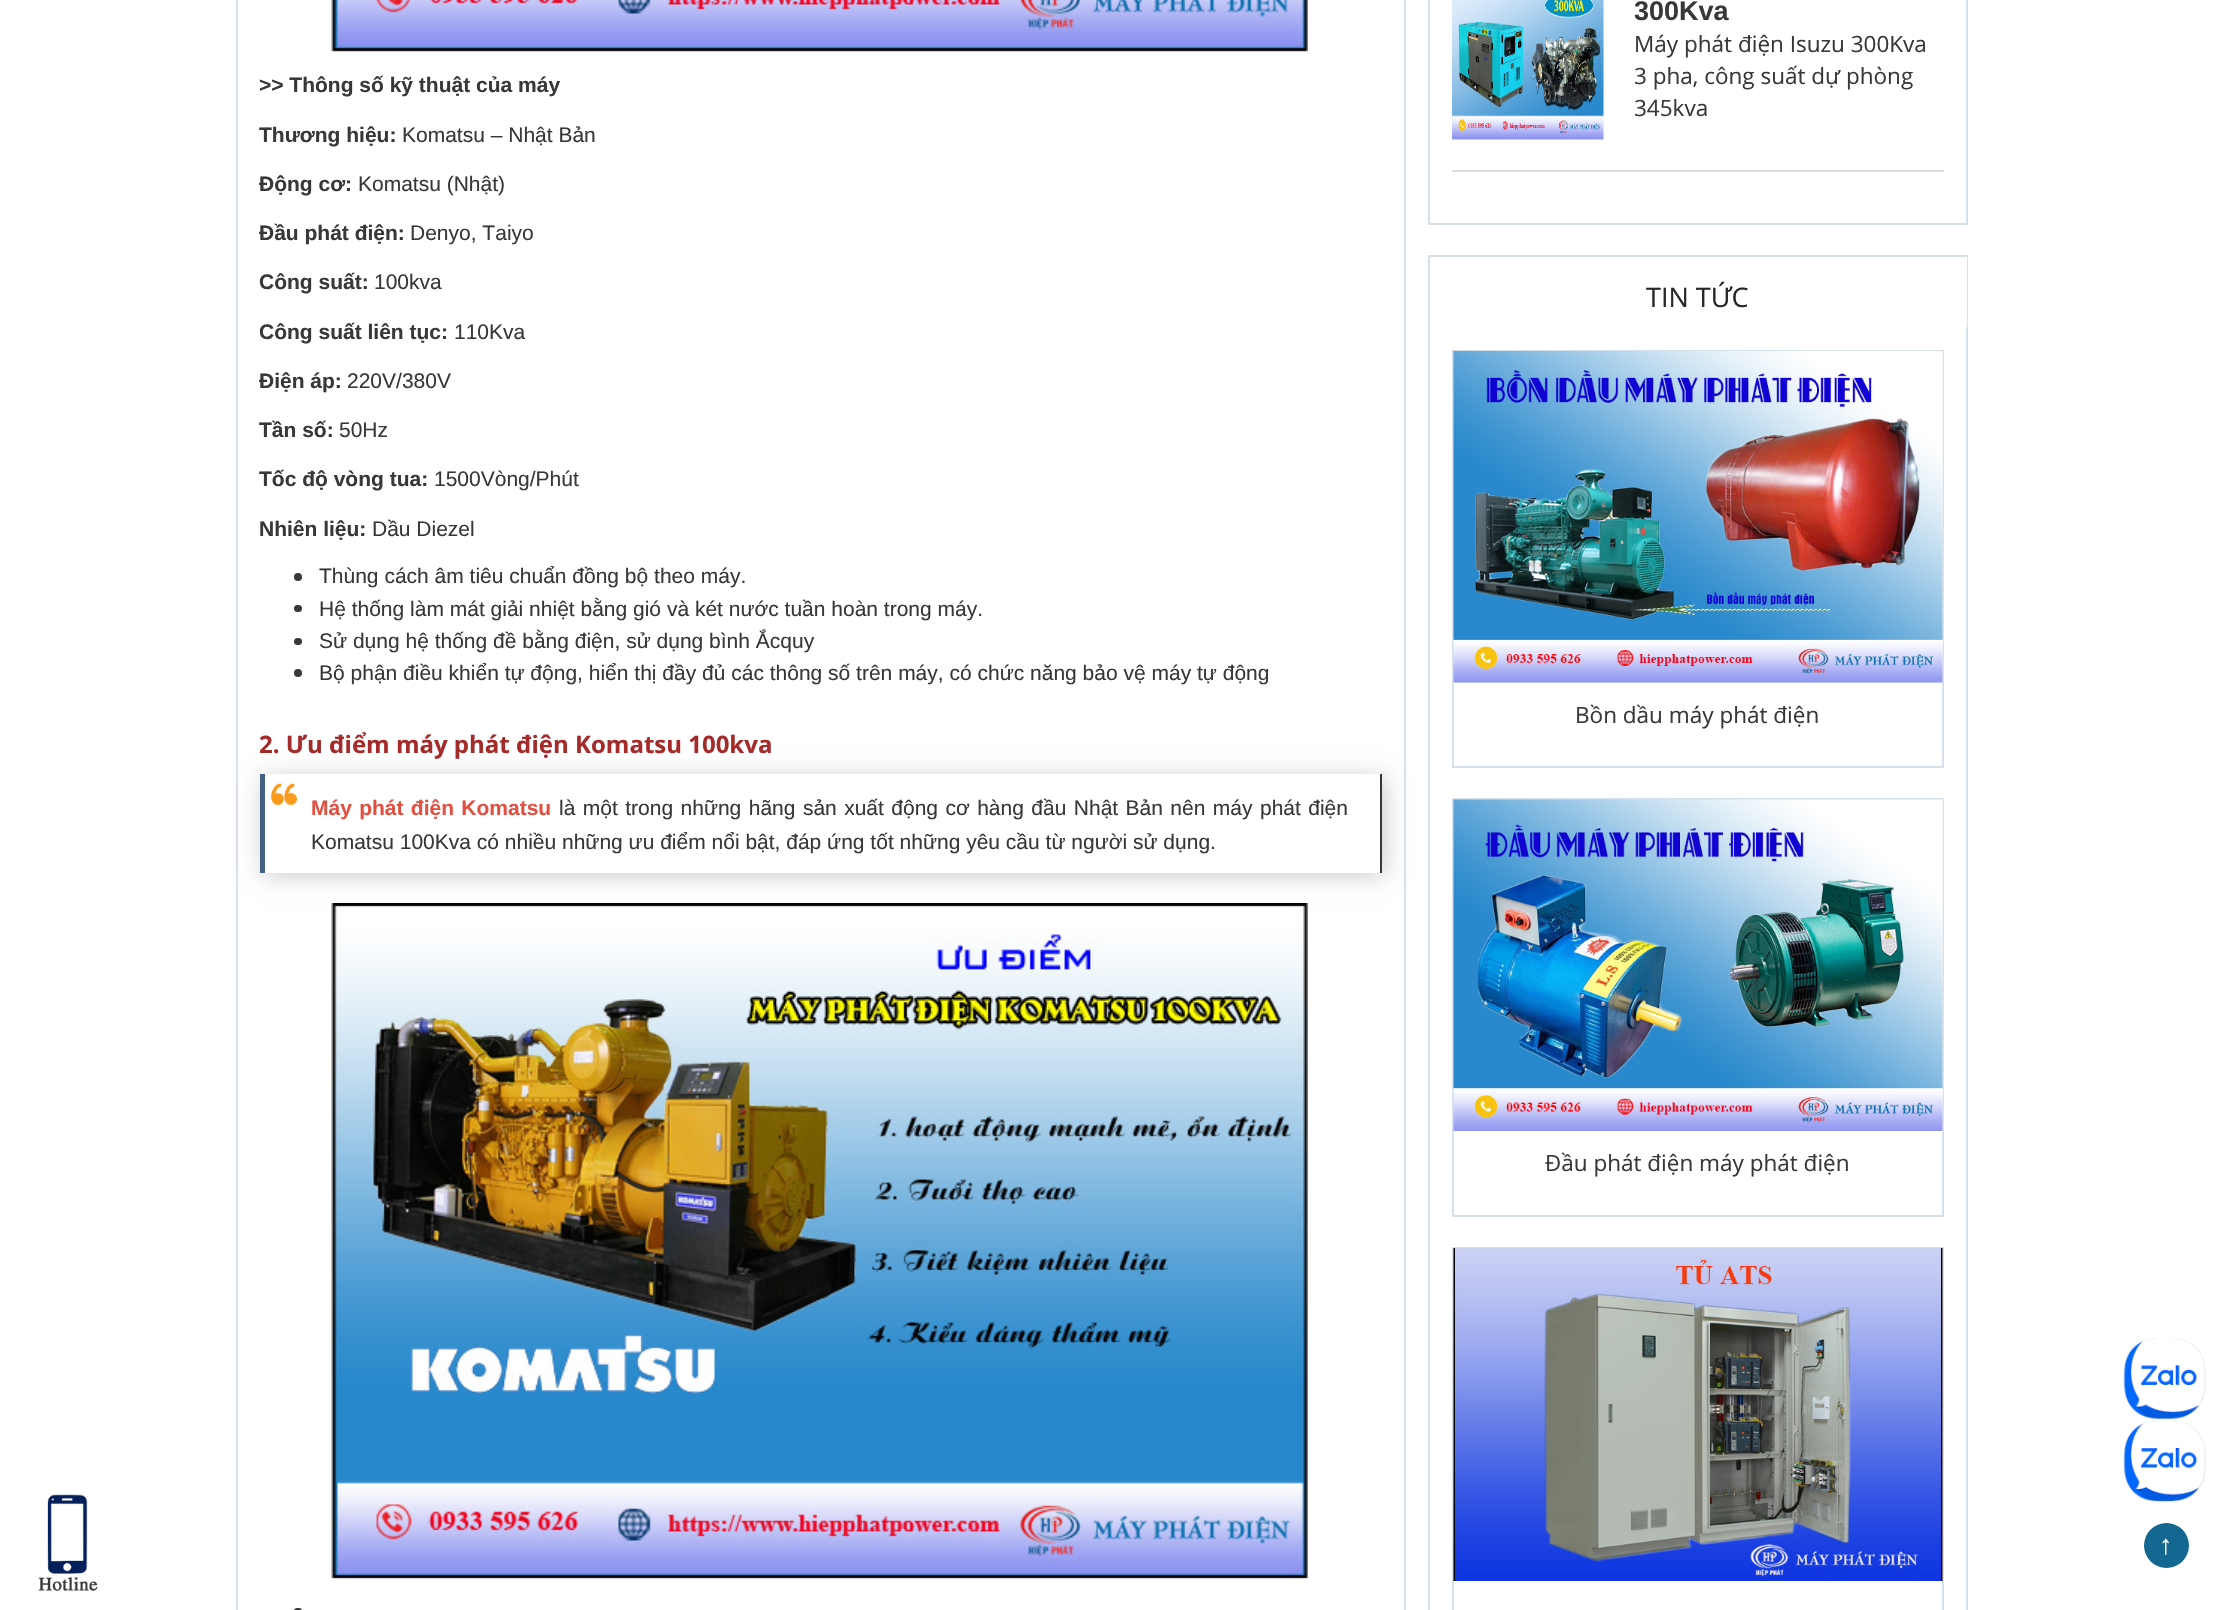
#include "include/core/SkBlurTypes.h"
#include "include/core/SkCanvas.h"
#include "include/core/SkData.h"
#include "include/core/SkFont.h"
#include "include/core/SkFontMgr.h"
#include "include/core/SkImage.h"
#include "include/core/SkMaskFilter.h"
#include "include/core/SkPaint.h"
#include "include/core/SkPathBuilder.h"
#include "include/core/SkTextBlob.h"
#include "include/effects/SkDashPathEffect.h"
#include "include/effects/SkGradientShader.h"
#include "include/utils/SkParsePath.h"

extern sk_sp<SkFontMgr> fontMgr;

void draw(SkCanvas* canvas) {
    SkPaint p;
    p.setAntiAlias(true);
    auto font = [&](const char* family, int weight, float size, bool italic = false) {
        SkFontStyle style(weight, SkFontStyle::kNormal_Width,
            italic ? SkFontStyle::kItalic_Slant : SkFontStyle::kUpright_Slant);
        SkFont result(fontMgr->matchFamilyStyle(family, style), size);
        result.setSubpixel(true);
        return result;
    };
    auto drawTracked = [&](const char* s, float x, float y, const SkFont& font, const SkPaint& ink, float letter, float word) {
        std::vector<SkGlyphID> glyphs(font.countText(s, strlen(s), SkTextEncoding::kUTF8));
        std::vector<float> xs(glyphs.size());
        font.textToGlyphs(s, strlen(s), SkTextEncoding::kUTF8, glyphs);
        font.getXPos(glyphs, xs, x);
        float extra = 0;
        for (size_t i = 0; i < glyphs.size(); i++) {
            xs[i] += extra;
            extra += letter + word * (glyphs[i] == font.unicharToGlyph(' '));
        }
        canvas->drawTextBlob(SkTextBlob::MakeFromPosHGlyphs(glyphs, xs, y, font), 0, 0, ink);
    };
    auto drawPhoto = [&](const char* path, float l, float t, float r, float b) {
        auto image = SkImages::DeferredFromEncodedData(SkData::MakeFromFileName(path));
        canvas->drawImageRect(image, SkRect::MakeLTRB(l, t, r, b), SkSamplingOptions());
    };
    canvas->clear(0xFFFFFFFF);
    p.setStyle(SkPaint::kStroke_Style);
    p.setStrokeWidth(2);
    p.setColor(0xFFD7DFE8);
    canvas->drawRect(SkRect::MakeLTRB(237, -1, 1405, 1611), p);
    drawPhoto("media/1.png", 331, 0, 1308, 52);
    auto font1 = font("Liberation Sans", 700, 21);
    p.setStyle(SkPaint::kFill_Style);
    p.setColor(0xFF383838);
    canvas->drawString(">> Thông số kỹ thuật của máy", 259, 92, font1, p);
    canvas->drawString("Thương hiệu:", 259, 142, font1, p);
    auto font2 = font("Liberation Sans", 400, 21);
    canvas->drawString("Komatsu – Nhật Bản", 402, 142, font2, p);
    canvas->drawString("Động cơ:", 259, 191, font1, p);
    canvas->drawString("Komatsu (Nhật)", 358, 191, font2, p);
    canvas->drawString("Đầu phát điện:", 259, 240, font1, p);
    canvas->drawString("Denyo, Taiyo", 410, 240, font2, p);
    canvas->drawString("Công suất:", 259, 289, font1, p);
    canvas->drawString("100kva", 374, 289, font2, p);
    canvas->drawString("Công suất liên tục:", 259, 339, font1, p);
    canvas->drawString("110Kva", 454, 339, font2, p);
    canvas->drawString("Điện áp:", 259, 388, font1, p);
    canvas->drawString("220V/380V", 347, 388, font2, p);
    canvas->drawString("Tần số:", 259, 437, font1, p);
    canvas->drawString("50Hz", 339, 437, font2, p);
    canvas->drawString("Tốc độ vòng tua:", 259, 486, font1, p);
    canvas->drawString("1500Vòng/Phút", 434, 486, font2, p);
    canvas->drawString("Nhiên liệu:", 259, 536, font1, p);
    canvas->drawString("Dầu Diezel", 372, 536, font2, p);
    canvas->drawCircle(298, 577, 4, p);
    canvas->drawString("Thùng cách âm tiêu chuẩn đồng bộ theo máy.", 319, 583, font2, p);
    canvas->drawRoundRect(SkRect::MakeLTRB(294, 605, 302, 612), 3.5f, 3.5f, p);
    canvas->drawString("Hệ thống làm mát giải nhiệt bằng gió và két nước tuần hoàn trong máy.", 319, 616, font2, p);
    canvas->drawRoundRect(SkRect::MakeLTRB(294, 638, 302, 645), 3.5f, 3.5f, p);
    canvas->drawString("Sử dụng hệ thống đề bằng điện, sử dụng bình Ắcquy", 319, 648, font2, p);
    canvas->drawCircle(298, 673, 4, p);
    canvas->drawString("Bộ phận điều khiển tự động, hiển thị đầy đủ các thông số trên máy, có chức năng bảo vệ máy tự động", 319, 680, font2, p);
    canvas->save();
    canvas->clipPath(SkPathBuilder(SkPathFillType::kEvenOdd).moveTo(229, 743).lineTo(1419, 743).lineTo(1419, 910).lineTo(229, 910).close().moveTo(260, 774).lineTo(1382, 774).lineTo(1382, 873).lineTo(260, 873).close().detach(), true);
    p.setColor(0xFFCCCCCC);
    p.setMaskFilter(SkMaskFilter::MakeBlur(kNormal_SkBlurStyle, 11));
    canvas->drawRect(SkRect::MakeLTRB(263, 777, 1385, 876), p);
    p.setMaskFilter(nullptr);
    canvas->restore();
    auto font3 = font("Open Sans", 700, 24);
    p.setColor(0xFFA52A2A);
    canvas->drawString("2. Ưu điểm máy phát điện Komatsu 100kva", 259, 753, font3, p);
    drawPhoto("media/2.png", 271, 783, 297, 806);
    p.setColor(0xFF383838);
    canvas->drawRect(SkRect::MakeLTRB(1380, 774, 1382, 873), p);
    p.setColor(0xFF446084);
    canvas->drawRect(SkRect::MakeLTRB(260, 774, 265, 873), p);
    p.setColor(0xFFE25041);
    drawTracked("Máy phát điện Komatsu", 311, 815, font1, p, 0, 1.5f);
    p.setColor(0xFF383838);
    drawTracked("là một trong những hãng sản xuất động cơ hàng đầu Nhật Bản nên máy phát điện", 559, 815, font2, p, 0, 1.6f);
    canvas->drawString("Komatsu 100Kva có nhiều những ưu điểm nổi bật, đáp ứng tốt những yêu cầu từ người sử dụng.", 311, 849, font2, p);
    drawPhoto("media/3.png", 331, 903, 1308, 1579);
    canvas->drawRoundRect(SkRect::MakeLTRB(294, 1608, 302, 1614), 4, 4, p);
    p.setStyle(SkPaint::kStroke_Style);
    p.setColor(0xFFD7DFE8);
    canvas->drawRect(SkRect::MakeLTRB(1429, -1, 1967, 224), p);
    p.setStyle(SkPaint::kFill_Style);
    p.setColor(0xFFDBDBDB);
    canvas->drawRect(SkRect::MakeLTRB(1452, 170, 1944, 172), p);
    drawPhoto("media/4.png", 1452, 0, 1604, 140);
    auto font4 = font("Liberation Sans", 700, 27);
    p.setColor(0xFF383838);
    canvas->drawString("300Kva", 1634, 20, font4, p);
    auto font5 = font("Open Sans", 400, 22.5f);
    {
        const struct { const char* s; float x, y; } items[] = {
            {"Máy phát điện Isuzu 300Kva", 1634, 52},
            {"3 pha, công suất dự phòng", 1634, 84},
            {"345kva", 1634, 116},
        };
        for (auto [s, x, y] : items) {
            canvas->drawString(s, x, y, font5, p);
        }
    }
    p.setStyle(SkPaint::kStroke_Style);
    p.setColor(0xFFD7DFE8);
    canvas->drawRect(SkRect::MakeLTRB(1429, 256, 1967, 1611), p);
    p.setStyle(SkPaint::kFill_Style);
    p.setColor(0xFFFFFFFF);
    canvas->drawRect(SkRect::MakeLTRB(1966, 257, 1967, 327), p);
    auto font6 = font("Open Sans", 400, 27);
    p.setColor(0xFF272727);
    canvas->drawString("TIN TỨC", 1646, 307, font6, p);
    p.setStyle(SkPaint::kStroke_Style);
    p.setColor(0xFFD7DFE8);
    canvas->drawRect(SkRect::MakeLTRB(1453, 351, 1943, 767), p);
    p.setStyle(SkPaint::kFill_Style);
    p.setColor(0xFFF3F3F3);
    canvas->drawRect(SkRect::MakeLTRB(1454, 351, 1943, 683), p);
    drawPhoto("media/5.png", 1453, 351, 1943, 683);
    p.setColor(0xFF383838);
    canvas->drawString("Bồn dầu máy phát điện", 1575, 723, font5, p);
    p.setStyle(SkPaint::kStroke_Style);
    p.setColor(0xFFD7DFE8);
    canvas->drawRect(SkRect::MakeLTRB(1453, 799, 1943, 1216), p);
    p.setStyle(SkPaint::kFill_Style);
    p.setColor(0xFFF3F3F3);
    canvas->drawRect(SkRect::MakeLTRB(1942, 800, 1943, 1131), p);
    drawPhoto("media/6.png", 1453, 799, 1943, 1131);
    p.setColor(0xFF383838);
    canvas->drawString("Đầu phát điện máy phát điện", 1545, 1171, font5, p);
    p.setStyle(SkPaint::kStroke_Style);
    p.setColor(0xFFD7DFE8);
    canvas->drawRect(SkRect::MakeLTRB(1453, 1248, 1943, 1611), p);
    p.setStyle(SkPaint::kFill_Style);
    p.setColor(0xFFF3F3F3);
    canvas->drawRect(SkRect::MakeLTRB(1942, 1248, 1943, 1581), p);
    drawPhoto("media/7.png", 1453, 1248, 1943, 1581);
    drawPhoto("media/8.png", 2123, 1338, 2206, 1420);
    drawPhoto("media/9.png", 2123, 1420, 2206, 1502);
    drawPhoto("media/10.png", 38, 1494, 98, 1591);
    p.setColor(0xFF146791);
    canvas->drawCircle(2166.5f, 1545.5f, 22.5f, p);
    auto font7 = font("Liberation Serif", 400, 27);
    p.setColor(0xFFFFFFFF);
    canvas->drawString("↑", 2159, 1554, font7, p);
}
